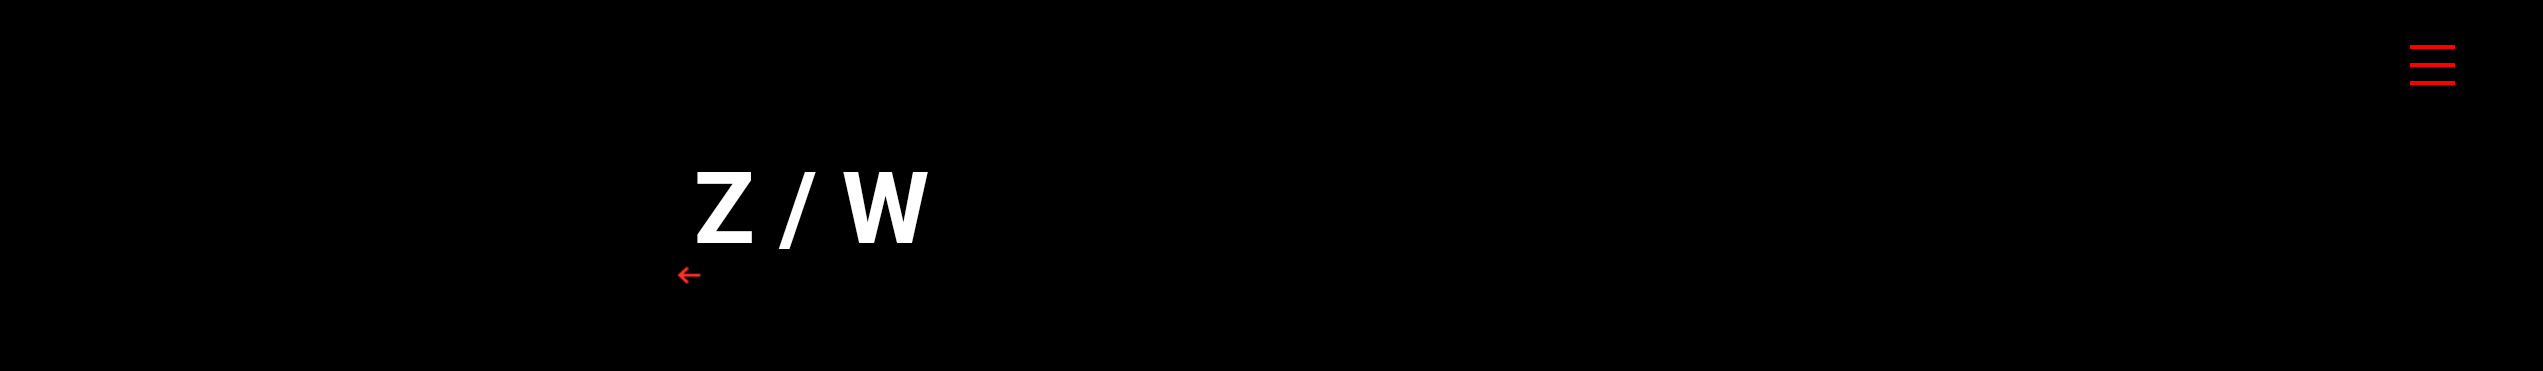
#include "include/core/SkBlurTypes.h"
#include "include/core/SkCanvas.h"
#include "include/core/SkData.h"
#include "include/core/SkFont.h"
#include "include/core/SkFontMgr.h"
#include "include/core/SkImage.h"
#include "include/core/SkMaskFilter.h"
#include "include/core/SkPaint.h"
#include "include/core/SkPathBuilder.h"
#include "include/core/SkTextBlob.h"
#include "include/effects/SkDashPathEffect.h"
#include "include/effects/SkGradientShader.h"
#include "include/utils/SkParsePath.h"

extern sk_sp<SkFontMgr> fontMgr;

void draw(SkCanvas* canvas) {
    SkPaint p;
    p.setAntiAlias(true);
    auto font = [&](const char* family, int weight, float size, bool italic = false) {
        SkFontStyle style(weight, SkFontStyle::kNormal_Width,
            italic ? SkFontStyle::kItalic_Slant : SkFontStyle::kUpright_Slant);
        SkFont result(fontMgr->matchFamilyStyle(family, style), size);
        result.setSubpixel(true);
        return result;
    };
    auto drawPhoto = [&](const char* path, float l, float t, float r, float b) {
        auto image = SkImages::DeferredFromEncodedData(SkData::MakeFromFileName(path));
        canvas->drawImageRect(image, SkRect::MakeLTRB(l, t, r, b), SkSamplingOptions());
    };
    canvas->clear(0xFF000000);
    {
        const struct { float l, t, r, b; SkColor color; } items[] = {
            {2410, 45, 2455, 49, 0xFFFC0000},
            {2410, 63, 2455, 67, 0xFFFC0000},
            {2410, 81, 2455, 85, 0xFFFC0000},
        };
        for (auto [l, t, r, b, color] : items) {
            p.setColor(color);
            canvas->drawRect(SkRect::MakeLTRB(l, t, r, b), p);
        }
    }
    auto font1 = font("Roboto", 700, 100);
    p.setColor(0xFFFFFFFF);
    canvas->drawString("Z / W", 694, 243, font1, p);
    drawPhoto("media/1.png", 677, 266, 702, 284);
}
